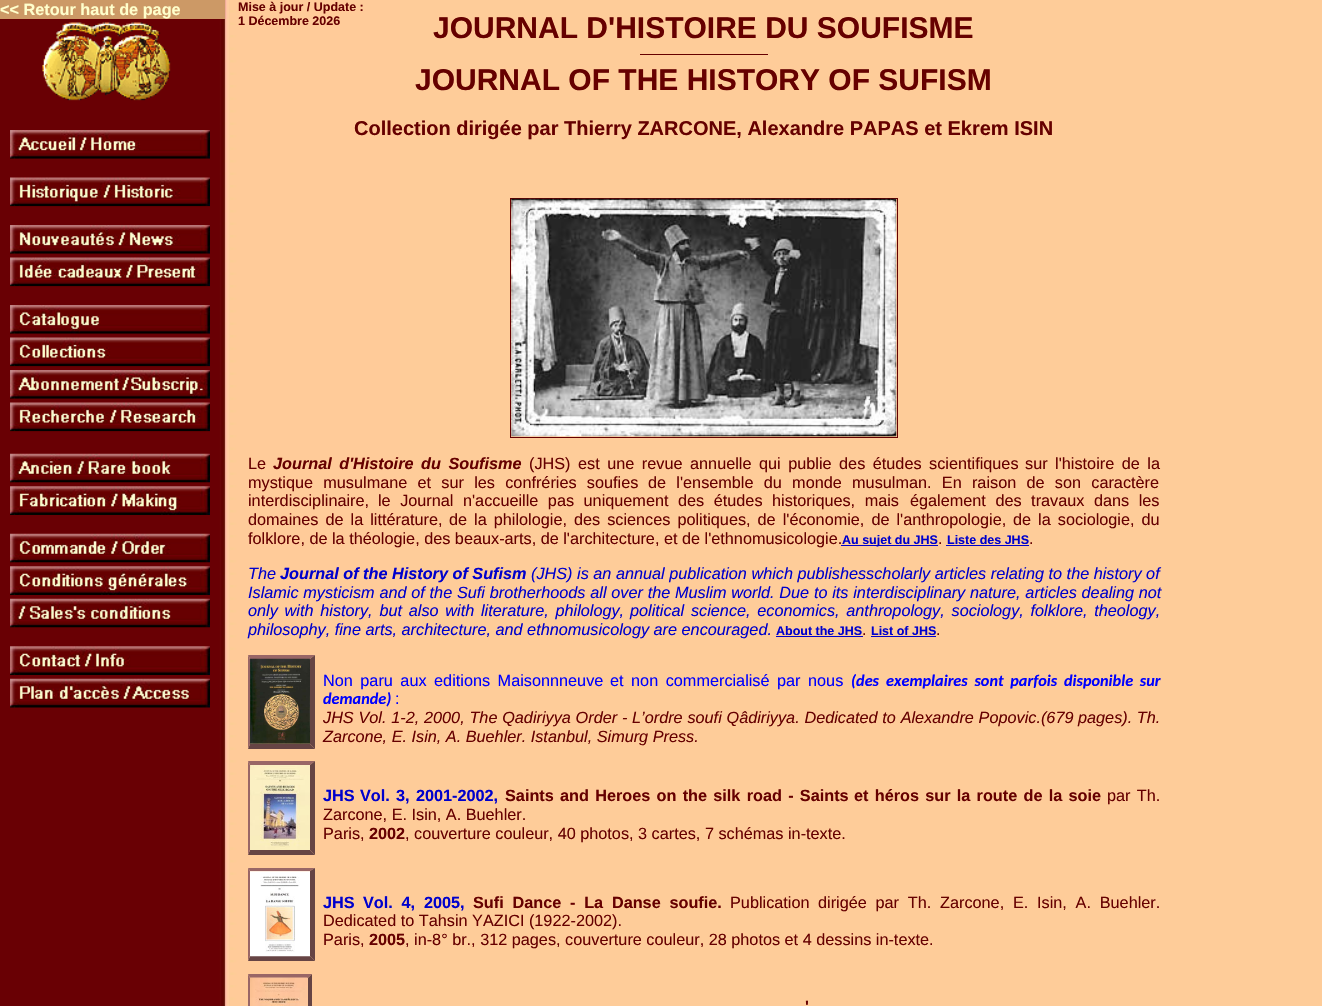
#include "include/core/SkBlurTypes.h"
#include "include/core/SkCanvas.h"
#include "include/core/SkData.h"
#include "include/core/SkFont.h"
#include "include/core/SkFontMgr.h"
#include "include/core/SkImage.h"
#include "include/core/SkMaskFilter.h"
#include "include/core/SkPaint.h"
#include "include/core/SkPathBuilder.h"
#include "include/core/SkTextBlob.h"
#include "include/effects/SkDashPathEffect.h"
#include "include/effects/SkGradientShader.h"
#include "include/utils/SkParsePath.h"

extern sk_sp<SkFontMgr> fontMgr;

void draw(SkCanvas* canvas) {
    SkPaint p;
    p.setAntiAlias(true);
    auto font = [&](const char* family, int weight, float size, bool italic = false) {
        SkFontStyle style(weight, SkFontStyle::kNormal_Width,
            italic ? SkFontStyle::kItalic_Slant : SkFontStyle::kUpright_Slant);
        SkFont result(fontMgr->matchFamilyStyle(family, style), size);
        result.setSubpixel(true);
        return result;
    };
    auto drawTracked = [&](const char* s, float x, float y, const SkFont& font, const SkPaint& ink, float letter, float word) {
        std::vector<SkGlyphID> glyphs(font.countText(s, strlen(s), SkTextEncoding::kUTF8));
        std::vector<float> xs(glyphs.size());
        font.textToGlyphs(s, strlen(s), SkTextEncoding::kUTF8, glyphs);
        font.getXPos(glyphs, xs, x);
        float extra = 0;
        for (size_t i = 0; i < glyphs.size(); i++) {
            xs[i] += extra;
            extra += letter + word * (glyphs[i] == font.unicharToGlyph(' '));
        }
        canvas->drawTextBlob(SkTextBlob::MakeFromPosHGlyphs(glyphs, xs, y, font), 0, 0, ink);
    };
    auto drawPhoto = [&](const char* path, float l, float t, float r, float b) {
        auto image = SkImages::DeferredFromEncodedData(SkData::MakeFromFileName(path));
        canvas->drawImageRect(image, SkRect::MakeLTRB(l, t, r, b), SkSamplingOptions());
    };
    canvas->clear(0xFFFFFFFF);
    drawPhoto("media/1.png", 0, 0, 1322, 1006);
    p.setColor(0xFFCC9966);
    canvas->drawRect(SkRect::MakeLTRB(0, 0, 225, 19), p);
    auto font1 = font("Liberation Sans", 700, 16.25f);
    p.setColor(0xFFFFFFCC);
    canvas->drawString("<< Retour haut de page", 0, 15, font1, p);
    drawPhoto("media/2.png", 42, 22, 171, 101);
    drawPhoto("media/3.png", 10, 130, 210, 159);
    p.setColor(0x40680000);
    canvas->drawRect(SkRect::MakeLTRB(10, 158, 210, 159), p);
    drawPhoto("media/4.png", 10, 177, 210, 207);
    p.setColor(0xBF660000);
    canvas->drawRect(SkRect::MakeLTRB(10, 206, 210, 207), p);
    drawPhoto("media/5.png", 10, 225, 210, 254);
    p.setColor(0x40680000);
    canvas->drawRect(SkRect::MakeLTRB(10, 253, 210, 254), p);
    drawPhoto("media/6.png", 10, 257, 210, 287);
    p.setColor(0xBF660000);
    canvas->drawRect(SkRect::MakeLTRB(10, 286, 210, 287), p);
    drawPhoto("media/7.png", 10, 305, 210, 334);
    p.setColor(0x40680000);
    canvas->drawRect(SkRect::MakeLTRB(10, 333, 210, 334), p);
    drawPhoto("media/8.png", 10, 337, 210, 367);
    p.setColor(0xBF660000);
    canvas->drawRect(SkRect::MakeLTRB(10, 366, 210, 367), p);
    drawPhoto("media/9.png", 10, 370, 210, 399);
    p.setColor(0x40680000);
    canvas->drawRect(SkRect::MakeLTRB(10, 398, 210, 399), p);
    drawPhoto("media/10.png", 10, 402, 210, 432);
    p.setColor(0xBF660000);
    canvas->drawRect(SkRect::MakeLTRB(10, 431, 210, 432), p);
    drawPhoto("media/11.png", 10, 453, 210, 483);
    p.setColor(0x80660000);
    canvas->drawRect(SkRect::MakeLTRB(10, 482, 210, 483), p);
    drawPhoto("media/12.png", 10, 486, 210, 515);
    drawPhoto("media/13.png", 10, 533, 210, 563);
    canvas->drawRect(SkRect::MakeLTRB(10, 562, 210, 563), p);
    drawPhoto("media/14.png", 10, 566, 210, 595);
    drawPhoto("media/15.png", 10, 598, 210, 628);
    canvas->drawRect(SkRect::MakeLTRB(10, 627, 210, 628), p);
    drawPhoto("media/16.png", 10, 646, 210, 675);
    drawPhoto("media/17.png", 10, 678, 210, 708);
    auto font2 = font("Liberation Sans", 700, 12.5f);
    p.setColor(0xFF660000);
    canvas->drawString("Mise à jour / Update :", 238, 11, font2, p);
    canvas->drawString("1 Décembre 2026", 238, 25, font2, p);
    auto font3 = font("Liberation Sans", 700, 30);
    canvas->drawString("JOURNAL D'HISTOIRE DU SOUFISME", 433, 38, font3, p);
    canvas->drawRect(SkRect::MakeLTRB(640, 54, 768, 55), p);
    canvas->drawString("JOURNAL OF THE HISTORY OF SUFISM", 415, 90, font3, p);
    auto font4 = font("Liberation Sans", 700, 20);
    canvas->drawString("Collection dirigée par Thierry ZARCONE, Alexandre PAPAS et Ekrem ISIN", 354, 135, font4, p);
    p.setStyle(SkPaint::kStroke_Style);
    p.setStrokeWidth(1);
    canvas->drawRect(SkRect::MakeLTRB(510.5f, 198.5f, 897.5f, 437.5f), p);
    drawPhoto("media/18.png", 511, 198, 897, 437);
    auto font5 = font("Liberation Sans", 400, 16.25f);
    p.setStyle(SkPaint::kFill_Style);
    canvas->drawString("Le", 248, 469, font5, p);
    auto font6 = font("Liberation Sans", 700, 16.25f, true);
    drawTracked("Journal d'Histoire du Soufisme", 273, 469, font6, p, 0, 3);
    drawTracked("(JHS) est une revue annuelle qui publie des études scientifiques", 529, 469, font5, p, 0, 3);
    drawTracked("sur l'histoire de la", 1025, 469, font5, p, 0, 3);
    drawTracked("mystique musulmane et sur les confréries soufies", 248, 488, font5, p, 0, 5.75f);
    drawTracked("de l'ensemble du monde musulman. En raison de son caractère", 648, 488, font5, p, 0, 5.75f);
    canvas->drawString("interdisciplinaire,", 248, 506, font5, p);
    drawTracked("le Journal n'accueille pas uniquement des études historiques, mais", 378, 506, font5, p, 0, 5);
    drawTracked("également des travaux dans les", 910, 506, font5, p, 0, 5);
    {
        const struct { const char* s; float x, y; } items[] = {
            {"domaines de la littérature,", 248, 525},
            {"de la philologie, des sciences politiques, de l'économie, de l'anthropologie,", 449, 525},
            {"de la sociologie, du", 1013, 525},
        };
        for (auto [s, x, y] : items) {
            drawTracked(s, x, y, font5, p, 0, 2.5f);
        }
    }
    canvas->drawString("folklore, de la théologie, des beaux-arts, de l'architecture, et de l'ethnomusicologie.", 248, 544, font5, p);
    p.setColor(0xFF0000CC);
    canvas->drawRect(SkRect::MakeLTRB(841, 545, 938, 546), p);
    canvas->drawString("Au sujet du JHS", 842, 544, font2, p);
    p.setColor(0xFF660000);
    canvas->drawString(".", 938, 544, font5, p);
    p.setColor(0xFF0000CC);
    canvas->drawString("Liste des JHS", 947, 544, font2, p);
    canvas->drawRect(SkRect::MakeLTRB(946, 545, 1029, 546), p);
    p.setColor(0xFF660000);
    canvas->drawString(".", 1029, 544, font5, p);
    auto font7 = font("Liberation Sans", 400, 16.25f, true);
    p.setColor(0xFF0000CC);
    canvas->drawString("The", 248, 579, font7, p);
    canvas->drawString("Journal of the History of Sufism", 280, 579, font6, p);
    canvas->drawString("(JHS) is an annual publication which publishesscholarly articles relating to the history of", 531, 579, font7, p);
    drawTracked("Islamic mysticism and of the Sufi brotherhoods all over the Muslim world. Due to its interdisciplinary nature, articles dealing not", 248, 598, font7, p, 0, 0.25f);
    drawTracked("only with history, but also with literature, philology,", 248, 616, font7, p, 0, 2.25f);
    drawTracked("political science, economics, anthropology, sociology, folklore, theology,", 630, 616, font7, p, 0, 2.25f);
    canvas->drawString("philosophy, fine arts, architecture, and ethnomusicology are encouraged.", 248, 635, font7, p);
    canvas->drawString("About the JHS", 776, 635, font2, p);
    canvas->drawRect(SkRect::MakeLTRB(776, 636, 863, 637), p);
    p.setColor(0xFF660000);
    canvas->drawString(".", 862, 635, font5, p);
    p.setColor(0xFF0000CC);
    canvas->drawString("List of JHS", 871, 635, font2, p);
    canvas->drawRect(SkRect::MakeLTRB(871, 636, 936, 637), p);
    p.setColor(0xFF660000);
    canvas->drawString(".", 936, 635, font5, p);
    p.setColor(0xFF996666);
    canvas->drawPath(SkPathBuilder().moveTo(248, 655).lineTo(315, 655).lineTo(310, 659).lineTo(250, 659).close().detach(), p);
    p.setColor(0xFF664444);
    canvas->drawPath(SkPathBuilder().moveTo(315, 655).lineTo(315, 749).lineTo(310, 744).lineTo(310, 659).close().detach(), p);
    canvas->drawPath(SkPathBuilder().moveTo(315, 749).lineTo(248, 749).lineTo(250, 744).lineTo(310, 744).close().detach(), p);
    p.setColor(0xFF996666);
    canvas->drawPath(SkPathBuilder().moveTo(248, 749).lineTo(248, 655).lineTo(250, 659).lineTo(250, 744).close().detach(), p);
    drawPhoto("media/19.png", 250, 658, 310, 744);
    p.setColor(0xFF0000FF);
    drawTracked("Non paru aux editions Maisonnneuve", 323, 686, font5, p, 0, 3);
    drawTracked("et non commercialisé par nous", 610, 686, font5, p, 0, 3);
    auto font8 = font("Carlito", 700, 16.25f, true);
    canvas->drawString("(des", 851, 686, font8, p);
    drawTracked("exemplaires sont parfois disponible sur", 886, 686, font8, p, 0, 3);
    canvas->drawString("demande)", 323, 704, font8, p);
    canvas->drawString(":", 395, 704, font5, p);
    p.setColor(0xFF660000);
    drawTracked("JHS Vol. 1-2, 2000, The Qadiriyya Order - L’ordre soufi Qâdiriyya. Dedicated to Alexandre Popovic.(679", 323, 723, font7, p, 0, 0.25f);
    canvas->drawString("pages). Th.", 1078, 723, font7, p);
    canvas->drawString("Zarcone, E. Isin, A. Buehler. Istanbul, Simurg Press.", 323, 742, font7, p);
    p.setColor(0xFF996666);
    canvas->drawPath(SkPathBuilder().moveTo(248, 761).lineTo(315, 761).lineTo(310, 765).lineTo(250, 765).close().detach(), p);
    p.setColor(0xFF664444);
    canvas->drawPath(SkPathBuilder().moveTo(315, 761).lineTo(315, 855).lineTo(310, 850).lineTo(310, 765).close().detach(), p);
    canvas->drawPath(SkPathBuilder().moveTo(315, 855).lineTo(248, 855).lineTo(250, 850).lineTo(310, 850).close().detach(), p);
    p.setColor(0xFF996666);
    canvas->drawPath(SkPathBuilder().moveTo(248, 855).lineTo(248, 761).lineTo(250, 765).lineTo(250, 850).close().detach(), p);
    drawPhoto("media/20.png", 250, 765, 310, 850);
    p.setColor(0xFF0000CC);
    canvas->drawString("JHS", 323, 801, font1, p);
    drawTracked("Vol. 3, 2001-2002,", 360, 801, font1, p, 0, 1.75f);
    p.setColor(0xFF660000);
    drawTracked("Saints and Heroes on the silk road - Saints", 505, 801, font1, p, 0, 1.75f);
    drawTracked("et héros sur la route de la soie", 854, 801, font1, p, 0, 1.75f);
    drawTracked("par Th.", 1107, 801, font5, p, 0, 1.75f);
    canvas->drawString("Zarcone, E. Isin, A. Buehler.", 323, 820, font5, p);
    canvas->drawString("Paris,", 323, 839, font5, p);
    canvas->drawString("2002", 369, 839, font1, p);
    canvas->drawString(", couverture couleur, 40 photos, 3 cartes, 7 schémas in-texte.", 405, 839, font5, p);
    p.setColor(0xFF996666);
    canvas->drawPath(SkPathBuilder().moveTo(248, 868).lineTo(315, 868).lineTo(310, 871).lineTo(250, 871).close().detach(), p);
    p.setColor(0xFF664444);
    canvas->drawPath(SkPathBuilder().moveTo(315, 868).lineTo(315, 961).lineTo(310, 956).lineTo(310, 871).close().detach(), p);
    canvas->drawPath(SkPathBuilder().moveTo(315, 961).lineTo(248, 961).lineTo(250, 956).lineTo(310, 956).close().detach(), p);
    p.setColor(0xFF996666);
    canvas->drawPath(SkPathBuilder().moveTo(248, 961).lineTo(248, 868).lineTo(250, 871).lineTo(250, 956).close().detach(), p);
    drawPhoto("media/21.png", 250, 871, 310, 957);
    p.setColor(0xFF0000CC);
    canvas->drawString("JHS", 323, 908, font1, p);
    drawTracked("Vol. 4, 2005,", 363, 908, font1, p, 0, 4.25f);
    p.setColor(0xFF660000);
    drawTracked("Sufi Dance - La Danse soufie.", 473, 908, font1, p, 0, 4.25f);
    canvas->drawString("Publication", 730, 908, font5, p);
    drawTracked("dirigée par Th. Zarcone, E. Isin, A. Buehler.", 818, 908, font5, p, 0, 4.25f);
    canvas->drawString("Dedicated to Tahsin YAZICI (1922-2002).", 323, 926, font5, p);
    canvas->drawString("Paris,", 323, 945, font5, p);
    canvas->drawString("2005", 369, 945, font1, p);
    canvas->drawString(", in-8° br., 312 pages, couverture couleur, 28 photos et 4 dessins in-texte.", 405, 945, font5, p);
    p.setColor(0xFF996666);
    canvas->drawPath(SkPathBuilder().moveTo(248, 974).lineTo(312, 974).lineTo(308, 978).lineTo(250, 978).close().detach(), p);
    canvas->drawPath(SkPathBuilder().moveTo(248, 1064).lineTo(248, 974).lineTo(250, 978).lineTo(250, 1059).close().detach(), p);
    drawPhoto("media/22.png", 250, 977, 308, 1006);
    p.setColor(0xFF664444);
    canvas->drawPath(SkPathBuilder().moveTo(312, 974).lineTo(312, 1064).lineTo(308, 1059).lineTo(308, 978).close().detach(), p);
    p.setColor(0xFF660000);
    canvas->drawString("'", 805, 1012, font1, p);
}
